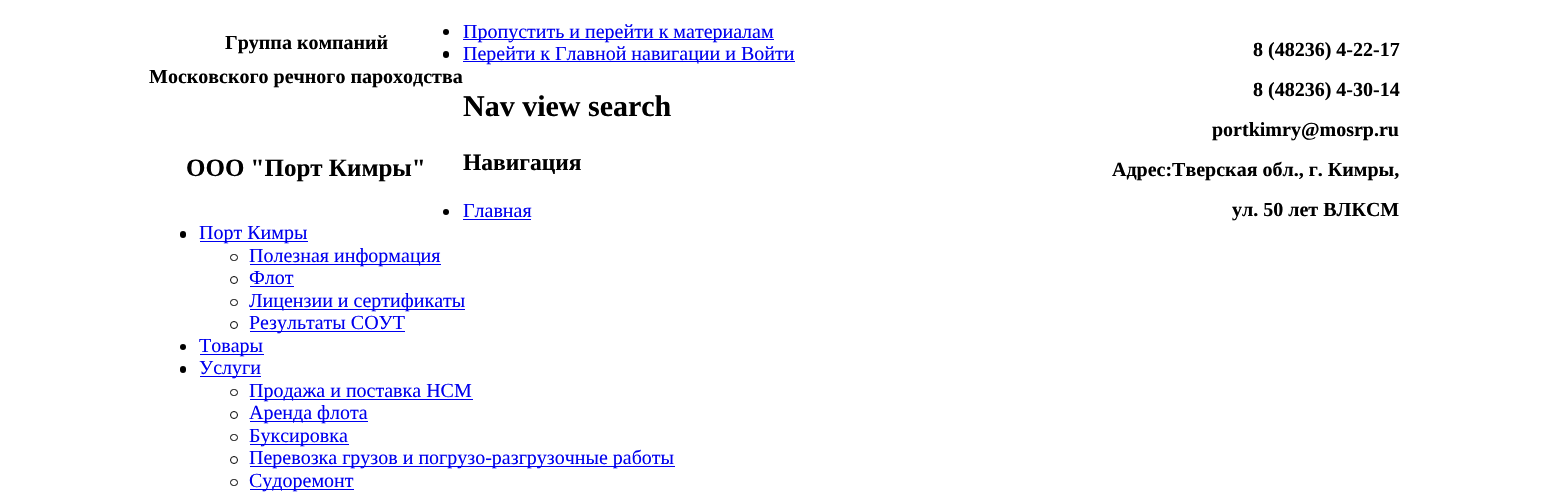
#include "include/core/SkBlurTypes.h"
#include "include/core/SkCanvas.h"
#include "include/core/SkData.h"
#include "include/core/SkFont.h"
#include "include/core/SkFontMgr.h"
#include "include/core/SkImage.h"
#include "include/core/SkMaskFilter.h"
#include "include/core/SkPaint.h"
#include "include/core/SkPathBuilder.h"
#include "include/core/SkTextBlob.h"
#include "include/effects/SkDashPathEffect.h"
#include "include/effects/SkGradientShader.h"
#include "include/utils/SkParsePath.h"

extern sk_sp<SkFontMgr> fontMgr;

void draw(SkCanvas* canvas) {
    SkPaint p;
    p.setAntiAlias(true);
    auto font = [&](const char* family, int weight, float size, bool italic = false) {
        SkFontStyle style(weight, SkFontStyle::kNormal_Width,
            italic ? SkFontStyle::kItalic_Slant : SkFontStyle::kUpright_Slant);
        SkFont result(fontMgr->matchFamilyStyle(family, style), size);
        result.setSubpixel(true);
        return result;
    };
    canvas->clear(0xFFFFFFFF);
    p.setColor(0xFF000000);
    canvas->drawCircle(446, 32, 3, p);
    p.setColor(0xFF0000EE);
    canvas->drawRect(SkRect::MakeLTRB(463, 39, 774, 40), p);
    auto font1 = font("Liberation Serif", 400, 20);
    canvas->drawString("Пропустить и перейти к материалам", 463, 38, font1, p);
    p.setColor(0xFF000000);
    canvas->drawRoundRect(SkRect::MakeLTRB(443, 51, 449, 58), 3, 3, p);
    p.setColor(0xFF0000EE);
    canvas->drawRect(SkRect::MakeLTRB(463, 61, 795, 62), p);
    canvas->drawString("Перейти к Главной навигации и Войти", 463, 60, font1, p);
    auto font2 = font("Liberation Serif", 700, 20);
    p.setColor(0xFF000000);
    canvas->drawString("Группа компаний", 225, 49, font2, p);
    canvas->drawString("Московского речного пароходства", 149, 83, font2, p);
    auto font3 = font("Liberation Serif", 700, 25);
    canvas->drawString("ООО \"Порт Кимры\"", 186, 176, font3, p);
    {
        const struct { const char* s; float x, y; } items[] = {
            {"8 (48236) 4-22-17", 1253, 56},
            {"8 (48236) 4-30-14", 1253, 96},
            {"portkimry@mosrp.ru", 1212, 136},
            {"Адрес:Тверская обл., г. Кимры,", 1112, 176},
            {"ул. 50 лет ВЛКСМ", 1232, 216},
        };
        for (auto [s, x, y] : items) {
            canvas->drawString(s, x, y, font2, p);
        }
    }
    auto font4 = font("Liberation Serif", 700, 30);
    canvas->drawString("Nav view search", 463, 116, font4, p);
    auto font5 = font("Liberation Serif", 700, 23.5f);
    canvas->drawString("Навигация", 463, 170, font5, p);
    canvas->drawCircle(446, 212, 3, p);
    p.setColor(0xFF0000EE);
    canvas->drawString("Главная", 463, 217, font1, p);
    canvas->drawRect(SkRect::MakeLTRB(463, 219, 531, 220), p);
    p.setColor(0xFF000000);
    canvas->drawRoundRect(SkRect::MakeLTRB(180, 231, 186, 238), 3, 3, p);
    p.setColor(0xFF0000EE);
    canvas->drawRect(SkRect::MakeLTRB(200, 241, 308, 242), p);
    canvas->drawString("Порт Кимры", 199, 239, font1, p);
    p.setStyle(SkPaint::kStroke_Style);
    p.setStrokeWidth(1);
    p.setColor(0xFF000000);
    canvas->drawRoundRect(SkRect::MakeLTRB(230.5f, 254.5f, 237.5f, 260.5f), 3, 3, p);
    p.setStyle(SkPaint::kFill_Style);
    p.setColor(0xFF0000EE);
    canvas->drawRect(SkRect::MakeLTRB(250, 264, 441, 265), p);
    canvas->drawString("Полезная информация", 249, 262, font1, p);
    p.setStyle(SkPaint::kStroke_Style);
    p.setColor(0xFF000000);
    canvas->drawCircle(234, 280, 3.5f, p);
    p.setStyle(SkPaint::kFill_Style);
    p.setColor(0xFF0000EE);
    canvas->drawString("Флот", 249, 284, font1, p);
    canvas->drawRect(SkRect::MakeLTRB(250, 286, 294, 287), p);
    p.setStyle(SkPaint::kStroke_Style);
    p.setColor(0xFF000000);
    canvas->drawRoundRect(SkRect::MakeLTRB(230.5f, 299.5f, 237.5f, 305.5f), 3, 3, p);
    p.setStyle(SkPaint::kFill_Style);
    p.setColor(0xFF0000EE);
    canvas->drawRect(SkRect::MakeLTRB(250, 309, 465, 310), p);
    canvas->drawString("Лицензии и сертификаты", 249, 307, font1, p);
    p.setStyle(SkPaint::kStroke_Style);
    p.setColor(0xFF000000);
    canvas->drawCircle(234, 325, 3.5f, p);
    p.setStyle(SkPaint::kFill_Style);
    p.setColor(0xFF0000EE);
    canvas->drawRect(SkRect::MakeLTRB(250, 331, 405, 332), p);
    canvas->drawString("Результаты СОУТ", 249, 329, font1, p);
    p.setColor(0xFF000000);
    canvas->drawCircle(183, 347, 3, p);
    p.setColor(0xFF0000EE);
    canvas->drawRect(SkRect::MakeLTRB(200, 354, 264, 355), p);
    canvas->drawString("Товары", 199, 352, font1, p);
    p.setColor(0xFF000000);
    canvas->drawRoundRect(SkRect::MakeLTRB(180, 366, 186, 373), 3, 3, p);
    p.setColor(0xFF0000EE);
    canvas->drawRect(SkRect::MakeLTRB(200, 376, 261, 377), p);
    canvas->drawString("Услуги", 199, 374, font1, p);
    p.setStyle(SkPaint::kStroke_Style);
    p.setColor(0xFF000000);
    canvas->drawRoundRect(SkRect::MakeLTRB(230.5f, 389.5f, 237.5f, 395.5f), 3, 3, p);
    p.setStyle(SkPaint::kFill_Style);
    p.setColor(0xFF0000EE);
    canvas->drawRect(SkRect::MakeLTRB(250, 399, 473, 400), p);
    canvas->drawString("Продажа и поставка НСМ", 249, 397, font1, p);
    p.setStyle(SkPaint::kStroke_Style);
    p.setColor(0xFF000000);
    canvas->drawCircle(234, 415, 3.5f, p);
    p.setStyle(SkPaint::kFill_Style);
    p.setColor(0xFF0000EE);
    canvas->drawRect(SkRect::MakeLTRB(250, 421, 368, 422), p);
    canvas->drawString("Аренда флота", 249, 419, font1, p);
    p.setStyle(SkPaint::kStroke_Style);
    p.setColor(0xFF000000);
    canvas->drawRoundRect(SkRect::MakeLTRB(230.5f, 434.5f, 237.5f, 440.5f), 3, 3, p);
    p.setStyle(SkPaint::kFill_Style);
    p.setColor(0xFF0000EE);
    canvas->drawRect(SkRect::MakeLTRB(250, 444, 349, 445), p);
    canvas->drawString("Буксировка", 249, 442, font1, p);
    p.setStyle(SkPaint::kStroke_Style);
    p.setColor(0xFF000000);
    canvas->drawCircle(234, 460, 3.5f, p);
    p.setStyle(SkPaint::kFill_Style);
    p.setColor(0xFF0000EE);
    canvas->drawRect(SkRect::MakeLTRB(250, 466, 675, 467), p);
    canvas->drawString("Перевозка грузов и погрузо-разгрузочные работы", 249, 464, font1, p);
    p.setStyle(SkPaint::kStroke_Style);
    p.setColor(0xFF000000);
    canvas->drawRoundRect(SkRect::MakeLTRB(230.5f, 479.5f, 237.5f, 485.5f), 3, 3, p);
    p.setStyle(SkPaint::kFill_Style);
    p.setColor(0xFF0000EE);
    canvas->drawRect(SkRect::MakeLTRB(250, 489, 354, 490), p);
    canvas->drawString("Судоремонт", 249, 487, font1, p);
}
